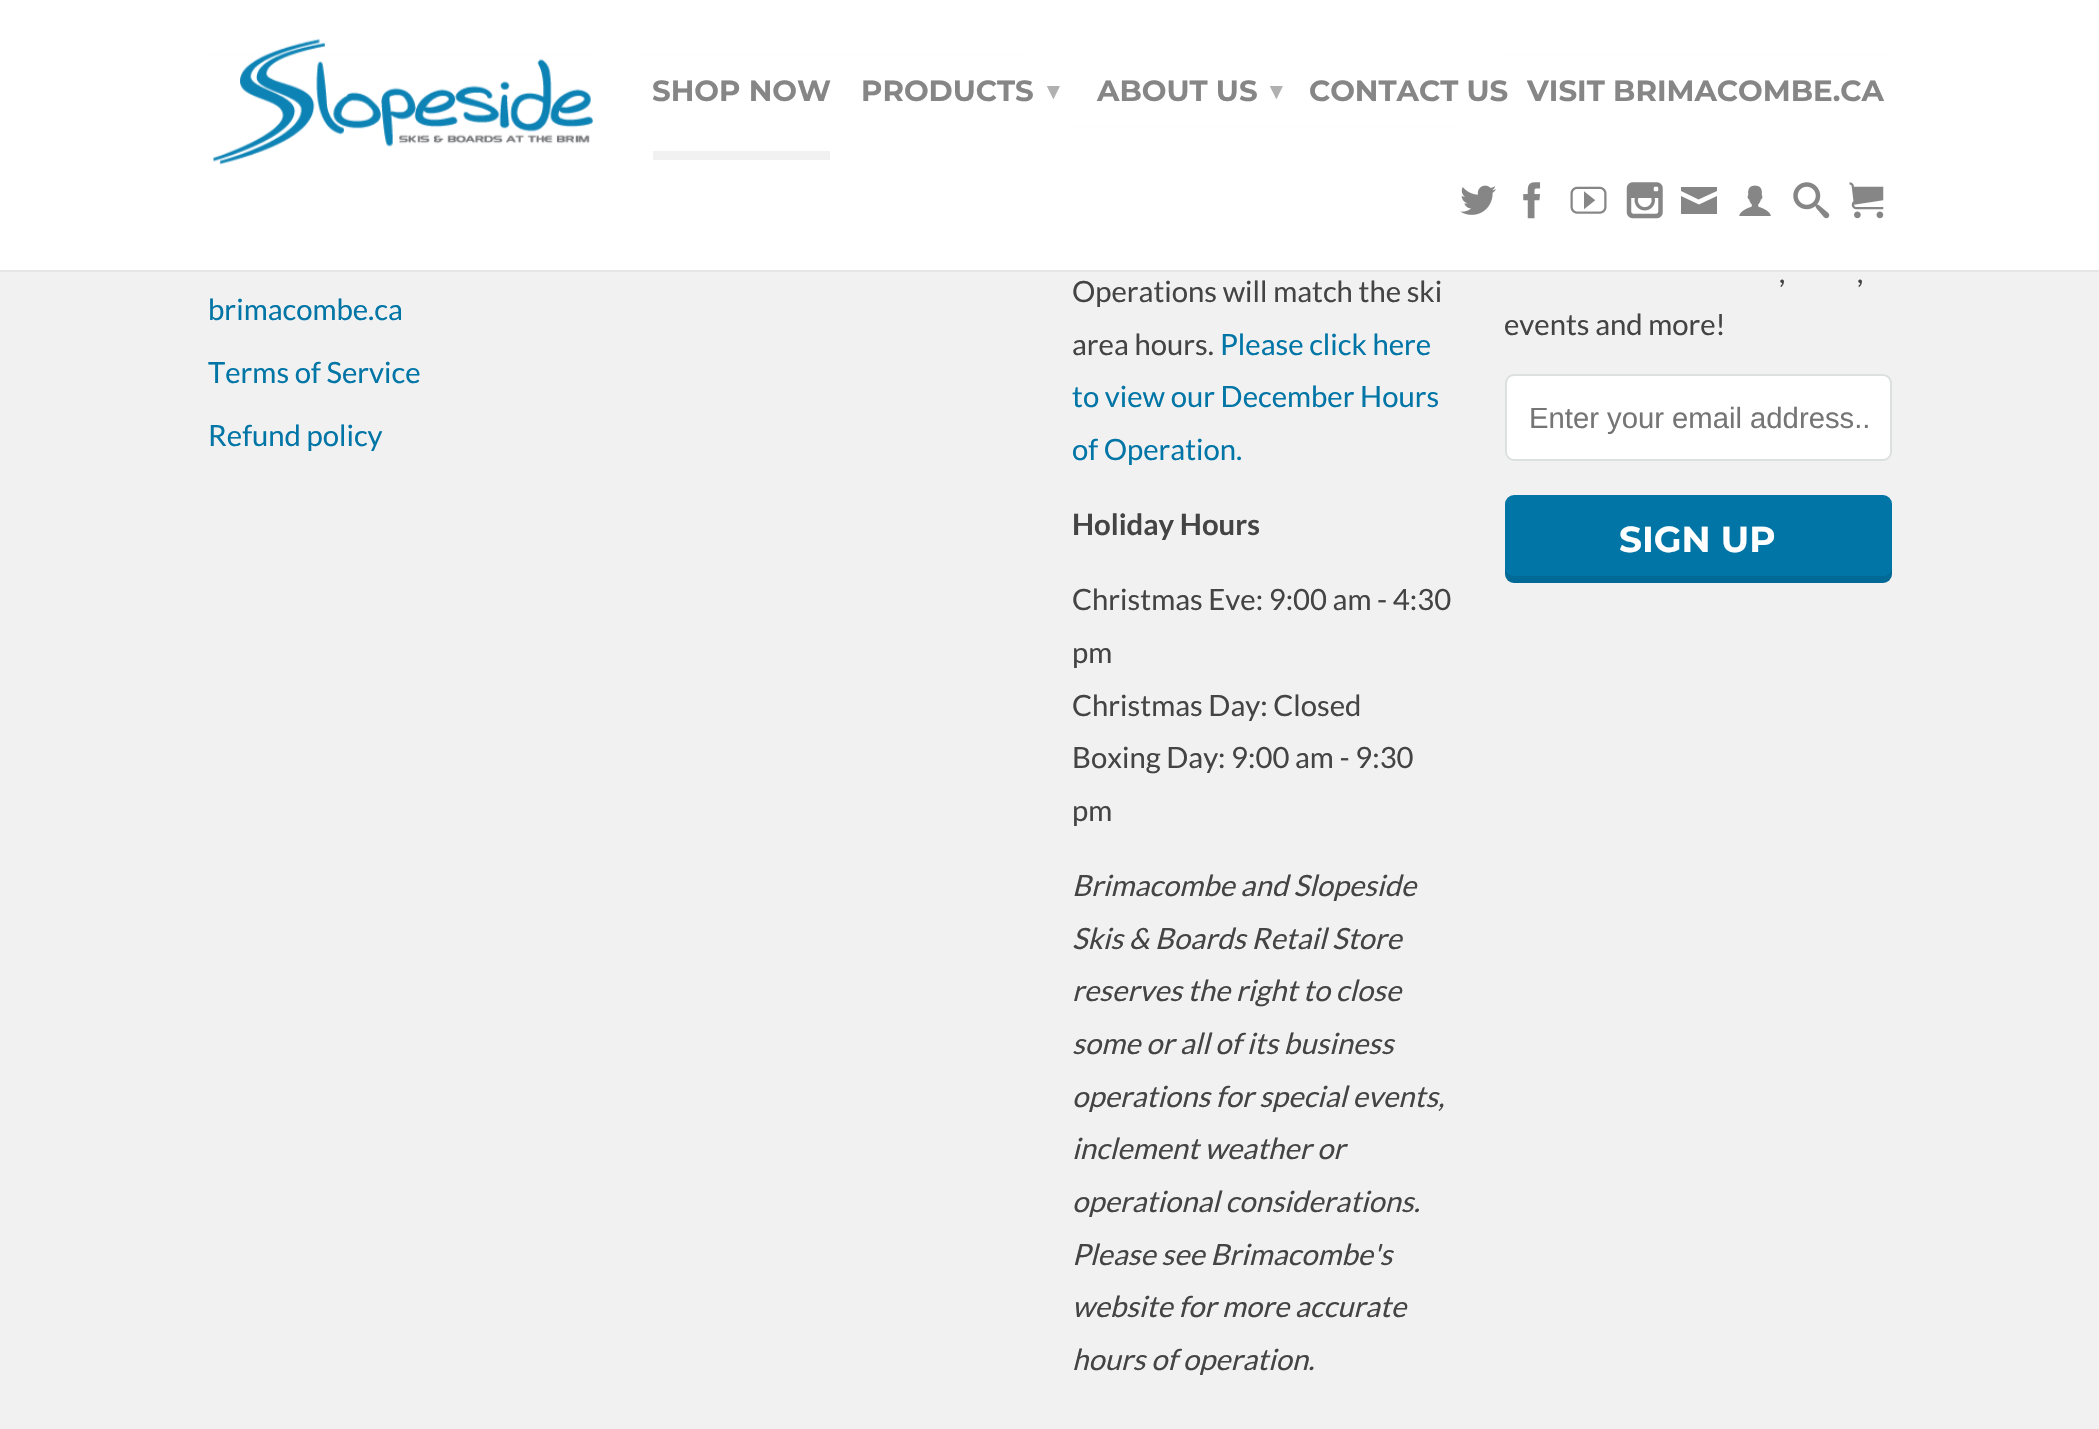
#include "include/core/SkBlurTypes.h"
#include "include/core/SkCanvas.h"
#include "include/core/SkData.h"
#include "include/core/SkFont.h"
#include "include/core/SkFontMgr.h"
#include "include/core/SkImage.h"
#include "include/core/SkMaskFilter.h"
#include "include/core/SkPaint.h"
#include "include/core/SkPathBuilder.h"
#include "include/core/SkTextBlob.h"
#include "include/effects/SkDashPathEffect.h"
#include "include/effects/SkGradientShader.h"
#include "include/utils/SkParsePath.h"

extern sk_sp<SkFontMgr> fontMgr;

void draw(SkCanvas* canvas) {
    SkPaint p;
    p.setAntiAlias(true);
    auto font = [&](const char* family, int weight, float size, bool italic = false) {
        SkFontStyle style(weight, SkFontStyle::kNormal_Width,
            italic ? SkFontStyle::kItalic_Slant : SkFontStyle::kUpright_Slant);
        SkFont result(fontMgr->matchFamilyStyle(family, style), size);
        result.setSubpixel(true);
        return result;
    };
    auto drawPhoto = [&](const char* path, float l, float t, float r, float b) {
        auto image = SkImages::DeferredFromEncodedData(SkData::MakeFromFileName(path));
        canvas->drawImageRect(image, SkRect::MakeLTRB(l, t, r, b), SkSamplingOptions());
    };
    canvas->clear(0xFFF1F1F1);
    {
        const struct { float l, t, r, b; SkColor color; } items[] = {
            {641, 54, 1028, 56, 0xFFE5E5E5},
            {209, 54, 596, 56, 0xFFE5E5E5},
            {1073, 126, 1460, 128, 0xFFE5E5E5},
            {1505, 54, 1892, 56, 0xFFE5E5E5},
            {0, 0, 2099, 272, 0xF2FFFFFF},
            {0, 270, 2099, 272, 0xF2E5E5E5},
        };
        for (auto [l, t, r, b, color] : items) {
            p.setColor(color);
            canvas->drawRect(SkRect::MakeLTRB(l, t, r, b), p);
        }
    }
    drawPhoto("media/1.png", 213, 38, 593, 165);
    auto font1 = font("Montserrat", 700, 29.25f);
    p.setColor(0xFF868686);
    canvas->drawString("SHOP NOW", 652, 101, font1, p);
    p.setColor(0xFFF1F1F1);
    canvas->drawRect(SkRect::MakeLTRB(653, 151, 830, 160), p);
    p.setColor(0xFF868686);
    canvas->drawString("PRODUCTS", 861, 101, font1, p);
    auto font2 = font("DejaVu Sans", 700, 24);
    p.setColor(0xFFB1B1B1);
    canvas->drawString("▾", 1047, 99, font2, p);
    p.setColor(0xFF868686);
    canvas->drawString("ABOUT US", 1097, 101, font1, p);
    p.setColor(0xFFB1B1B1);
    canvas->drawString("▾", 1270, 99, font2, p);
    p.setColor(0xFF868686);
    canvas->drawString("CONTACT US", 1309, 101, font1, p);
    canvas->drawString("VISIT BRIMACOMBE.CA", 1527, 101, font1, p);
    drawPhoto("media/2.png", 1460, 185, 1496, 215);
    drawPhoto("media/3.png", 1523, 182, 1541, 219);
    drawPhoto("media/4.png", 1570, 186, 1607, 214);
    drawPhoto("media/5.png", 1626, 182, 1663, 219);
    p.setColor(0xF2808080);
    canvas->drawPath(SkPathBuilder().moveTo(1698.5f, 199.5f).lineTo(1681, 191).lineTo(1681, 187).lineTo(1717, 187).lineTo(1717, 191).close().moveTo(1699, 204.5f).lineTo(1717, 196).lineTo(1717, 214).lineTo(1681, 214).lineTo(1681, 196).close().detach(), p);
    drawPhoto("media/6.png", 1739, 185, 1771, 216);
    drawPhoto("media/7.png", 1793, 182, 1830, 219);
    drawPhoto("media/8.png", 1849, 182, 1884, 219);
    auto font3 = font("Lato", 400, 29.25f);
    p.setColor(0xFF0075A6);
    {
        const struct { const char* s; float x, y; } items[] = {
            {"brimacombe.ca", 208, 320},
            {"Terms of Service", 208, 383},
            {"Refund policy", 208, 446},
        };
        for (auto [s, x, y] : items) {
            canvas->drawString(s, x, y, font3, p);
        }
    }
    p.setColor(0xFF444444);
    canvas->drawString("Operations will match the ski", 1072, 302, font3, p);
    canvas->drawString("area hours.", 1072, 355, font3, p);
    p.setColor(0xFF0075A6);
    {
        const struct { const char* s; float x, y; } items[] = {
            {"Please click here", 1220, 355},
            {"to view our December Hours", 1072, 407},
            {"of Operation.", 1072, 460},
        };
        for (auto [s, x, y] : items) {
            canvas->drawString(s, x, y, font3, p);
        }
    }
    auto font4 = font("Lato", 700, 29.25f);
    p.setColor(0xFF444444);
    canvas->drawString("Holiday Hours", 1072, 535, font4, p);
    {
        const struct { const char* s; float x, y; } items[] = {
            {"Christmas Eve: 9:00 am - 4:30", 1072, 610},
            {"pm", 1072, 663},
            {"Christmas Day: Closed", 1072, 716},
            {"Boxing Day: 9:00 am - 9:30", 1072, 768},
            {"pm", 1072, 821},
        };
        for (auto [s, x, y] : items) {
            canvas->drawString(s, x, y, font3, p);
        }
    }
    auto font5 = font("Lato", 400, 29.25f, true);
    {
        const struct { const char* s; float x, y; } items[] = {
            {"Brimacombe and Slopeside", 1072, 896},
            {"Skis & Boards Retail Store", 1072, 949},
            {"reserves the right to close", 1072, 1001},
            {"some or all of its business", 1072, 1054},
            {"operations for special events,", 1072, 1107},
            {"inclement weather or", 1072, 1159},
            {"operational considerations.", 1072, 1212},
            {"Please see Brimacombe's", 1072, 1265},
            {"website for more accurate", 1072, 1317},
            {"hours of operation.", 1072, 1370},
        };
        for (auto [s, x, y] : items) {
            canvas->drawString(s, x, y, font5, p);
        }
    }
    {
        const struct { const char* s; float x, y; } items[] = {
            {",", 1779, 283},
            {",", 1857, 283},
            {"events and more!", 1504, 335},
        };
        for (auto [s, x, y] : items) {
            canvas->drawString(s, x, y, font3, p);
        }
    }
    p.setColor(0xFFFFFFFF);
    canvas->drawRoundRect(SkRect::MakeLTRB(1506, 375, 1891, 460), 8, 8, p);
    p.setStyle(SkPaint::kStroke_Style);
    p.setStrokeWidth(2);
    p.setColor(0xFFDCE0E0);
    canvas->drawRoundRect(SkRect::MakeLTRB(1506, 375, 1891, 460), 8, 8, p);
    auto font6 = font("Liberation Sans", 400, 29.25f);
    p.setStyle(SkPaint::kFill_Style);
    p.setColor(0xFF757575);
    canvas->drawString("Enter your email address..", 1529, 428, font6, p);
    p.setColor(0xFF0075A6);
    canvas->drawRoundRect(SkRect::MakeLTRB(1505, 495, 1892, 583), 9, 9, p);
    p.setColor(0x1A000000);
    canvas->drawPath(SkPathBuilder().moveTo(1505, 567).lineTo(1505, 574).cubicTo(1505, 579, 1509, 583, 1514, 583).lineTo(1883, 583).cubicTo(1888, 583, 1892, 579, 1892, 574).lineTo(1892, 567).cubicTo(1892, 572, 1888, 576, 1883, 576).lineTo(1514, 576).cubicTo(1509, 576, 1505, 572, 1505, 567).close().detach(), p);
    auto font7 = font("Montserrat", 700, 36);
    p.setColor(0xFFFFFFFF);
    canvas->drawString("SIGN UP", 1619, 552, font7, p);
}
